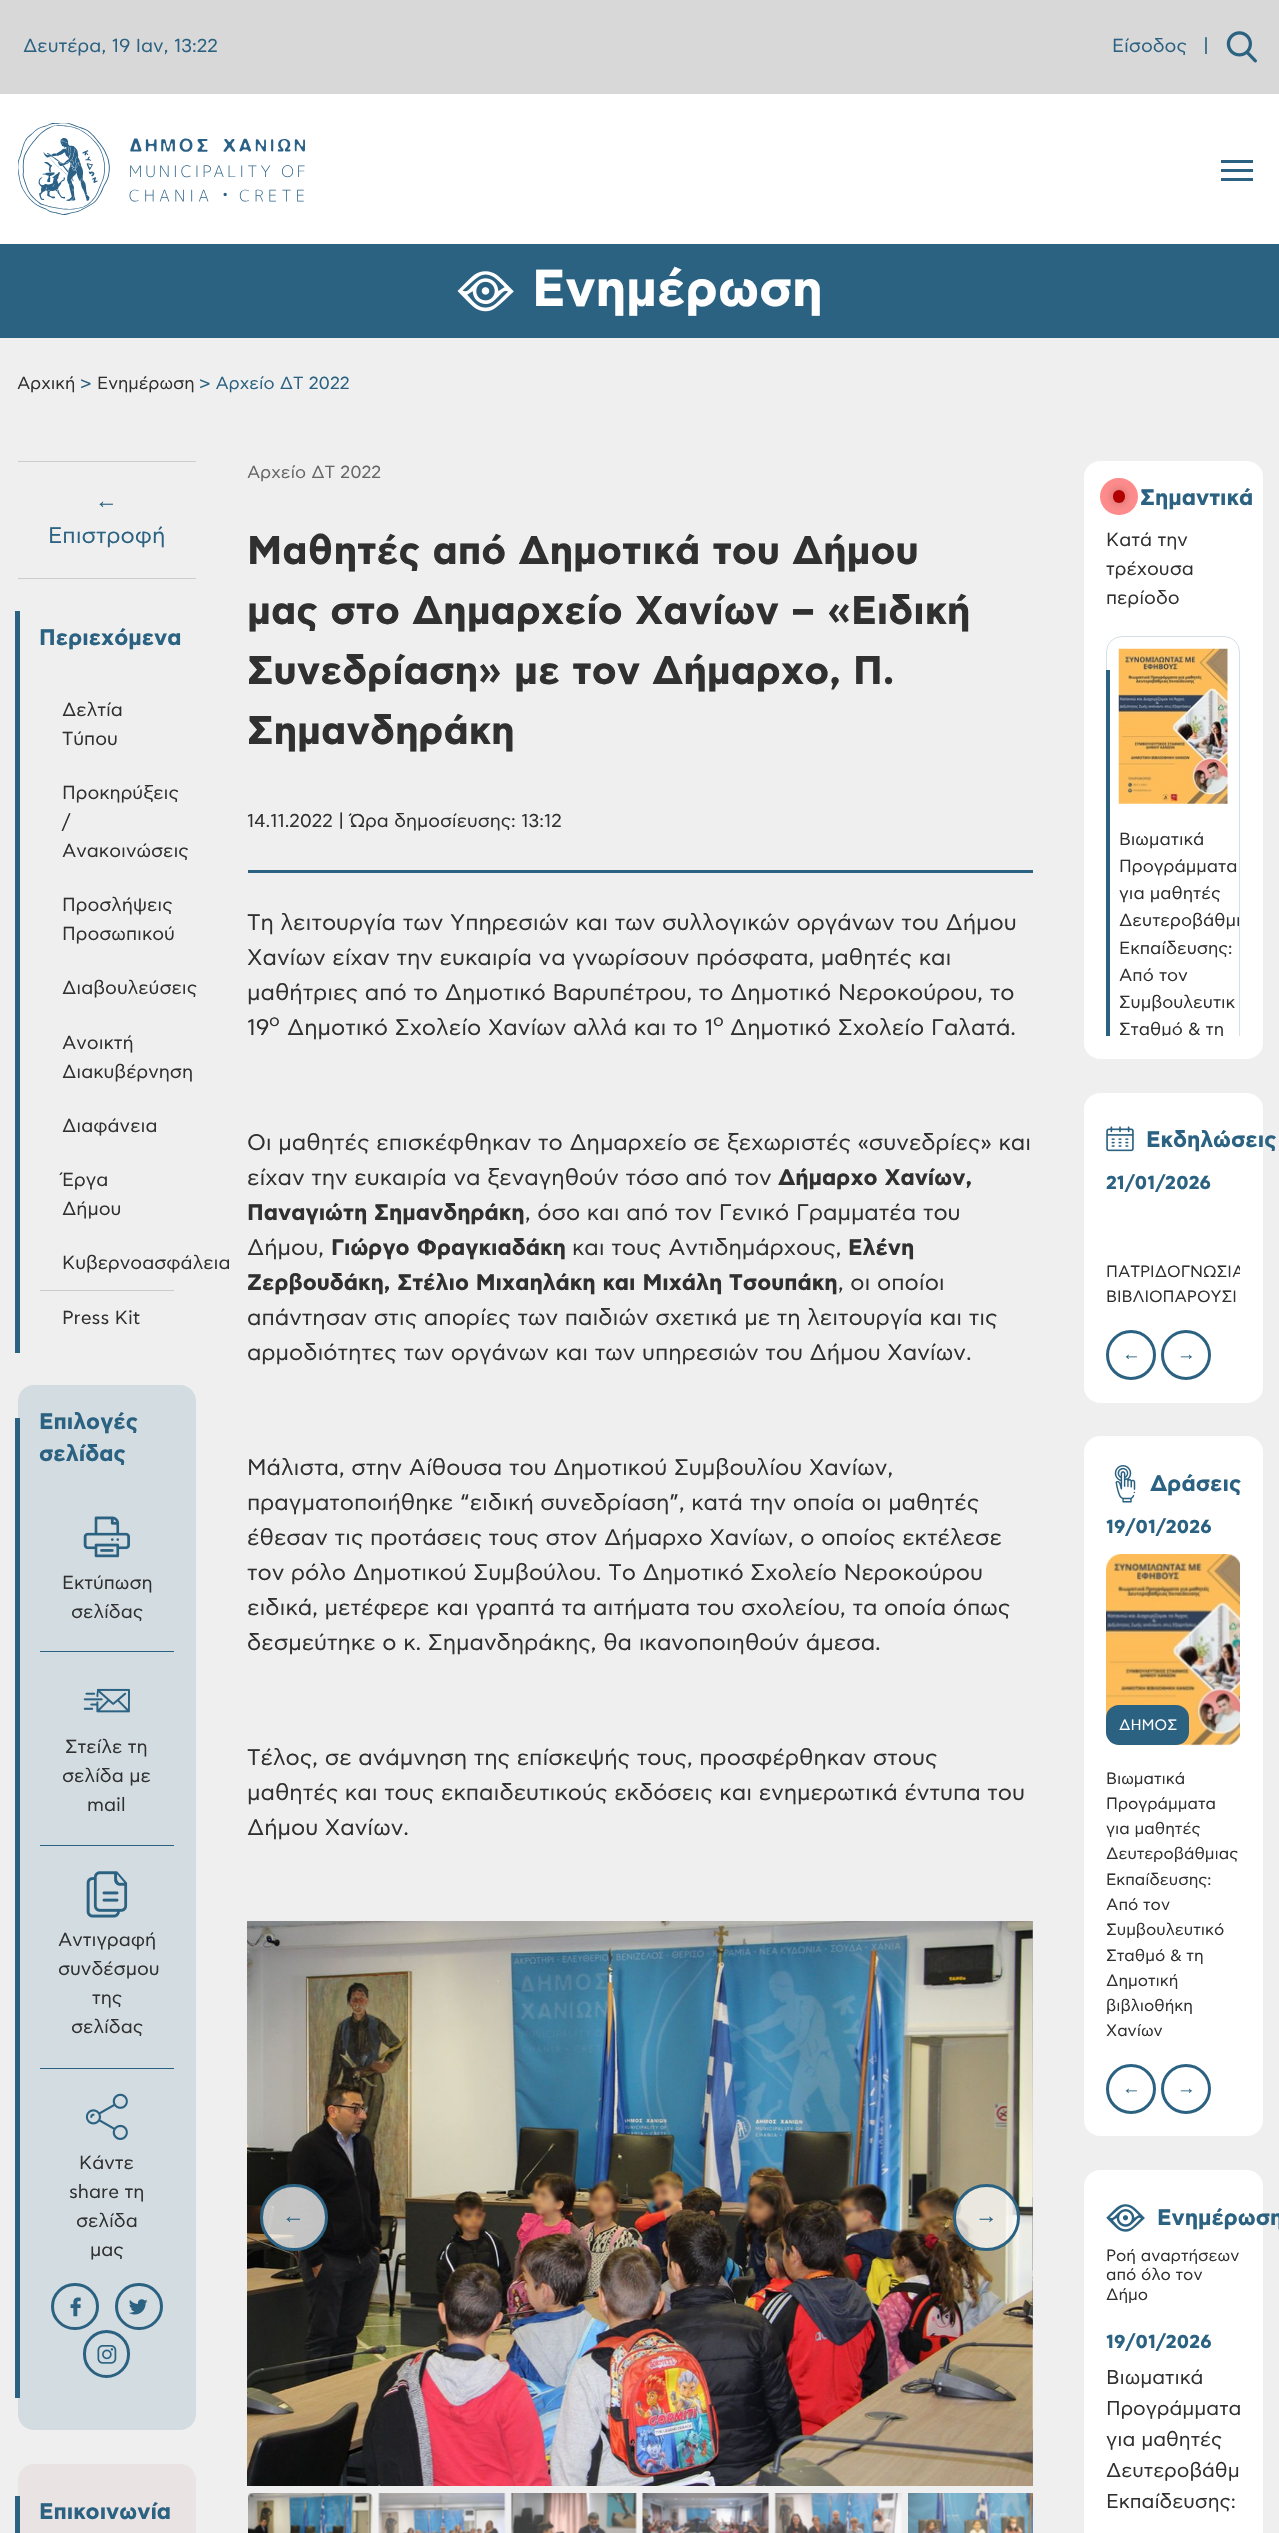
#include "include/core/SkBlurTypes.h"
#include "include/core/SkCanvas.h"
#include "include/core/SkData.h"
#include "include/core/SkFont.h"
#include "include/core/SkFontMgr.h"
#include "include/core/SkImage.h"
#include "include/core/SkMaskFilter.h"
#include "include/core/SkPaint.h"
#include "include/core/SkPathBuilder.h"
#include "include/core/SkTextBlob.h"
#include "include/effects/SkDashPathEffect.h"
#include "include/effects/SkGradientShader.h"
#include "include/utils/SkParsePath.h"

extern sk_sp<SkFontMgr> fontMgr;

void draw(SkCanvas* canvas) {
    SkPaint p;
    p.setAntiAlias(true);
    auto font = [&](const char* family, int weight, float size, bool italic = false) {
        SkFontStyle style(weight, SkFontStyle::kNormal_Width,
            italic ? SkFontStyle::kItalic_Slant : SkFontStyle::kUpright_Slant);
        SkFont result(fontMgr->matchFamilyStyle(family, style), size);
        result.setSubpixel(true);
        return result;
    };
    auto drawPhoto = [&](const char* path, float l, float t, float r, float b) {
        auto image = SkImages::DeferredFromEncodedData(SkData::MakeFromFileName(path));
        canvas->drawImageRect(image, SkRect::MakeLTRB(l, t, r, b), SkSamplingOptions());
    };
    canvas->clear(0xFFEFEFEF);
    p.setColor(0xFFD8D8D8);
    canvas->drawRect(SkRect::MakeLTRB(0, 0, 1279, 94), p);
    auto font1 = font("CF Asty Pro", 400, 18.75f);
    p.setColor(0xFF2B6181);
    {
        const struct { const char* s; float x, y; } items[] = {
            {"Δευτέρα, 19 Ιαν, 13:22", 23, 52},
            {"Είσοδος", 1112, 52},
            {"|", 1203, 52},
        };
        for (auto [s, x, y] : items) {
            canvas->drawString(s, x, y, font1, p);
        }
    }
    drawPhoto("media/1.png", 1226, 31, 1257, 63);
    p.setColor(0xFFFFFFFF);
    canvas->drawRect(SkRect::MakeLTRB(0, 94, 1279, 244), p);
    drawPhoto("media/2.png", 18, 123, 305, 215);
    {
        const struct { float l, t, r, b; SkColor color; } items[] = {
            {1221, 160, 1253, 163, 0xFF2B6181},
            {1221, 169, 1253, 172, 0xFF2B6181},
            {1221, 178, 1253, 181, 0xFF2B6181},
            {0, 244, 1279, 338, 0xFF2B6181},
        };
        for (auto [l, t, r, b, color] : items) {
            p.setColor(color);
            canvas->drawRect(SkRect::MakeLTRB(l, t, r, b), p);
        }
    }
    drawPhoto("media/3.png", 457, 271, 514, 312);
    auto font2 = font("CF Asty Pro", 700, 51.75f);
    p.setColor(0xFFFFFFFF);
    canvas->drawString("Ενημέρωση", 532, 306, font2, p);
    auto font3 = font("CF Asty Pro", 400, 17.5f);
    p.setColor(0xFF303030);
    canvas->drawString("Αρχική", 17, 389, font3, p);
    p.setColor(0xFF2B6181);
    canvas->drawString(">", 80, 389, font3, p);
    p.setColor(0xFF303030);
    canvas->drawString("Ενημέρωση", 97, 389, font3, p);
    p.setColor(0xFF2B6181);
    canvas->drawString("> Αρχείο ΔΤ 2022", 199, 389, font3, p);
    p.setColor(0xFFCDCBCC);
    canvas->drawRect(SkRect::MakeLTRB(18, 461, 196, 462), p);
    canvas->drawRect(SkRect::MakeLTRB(18, 578, 196, 579), p);
    auto font4 = font("Liberation Sans", 400, 22.5f);
    p.setColor(0xFF2B6181);
    canvas->drawString("←", 95, 508, font4, p);
    auto font5 = font("CF Asty Pro", 400, 22.5f);
    canvas->drawString("Επιστροφή", 48, 543, font5, p);
    canvas->drawRect(SkRect::MakeLTRB(15, 611, 20, 1353), p);
    auto font6 = font("CF Asty Pro", 700, 22.5f);
    canvas->drawString("Περιεχόμενα", 39, 645, font6, p);
    p.setColor(0xFF303030);
    {
        const struct { const char* s; float x, y; } items[] = {
            {"Δελτία", 62, 716},
            {"Τύπου", 62, 745},
            {"Προκηρύξεις", 62, 799},
            {"/", 62, 828},
            {"Ανακοινώσεις", 62, 857},
            {"Προσλήψεις", 62, 911},
            {"Προσωπικού", 62, 940},
            {"Διαβουλεύσεις", 62, 994},
            {"Ανοικτή", 62, 1049},
            {"Διακυβέρνηση", 62, 1078},
            {"Διαφάνεια", 62, 1132},
            {"Έργα", 62, 1186},
            {"Δήμου", 62, 1215},
            {"Κυβερνοασφάλεια", 62, 1269},
        };
        for (auto [s, x, y] : items) {
            canvas->drawString(s, x, y, font1, p);
        }
    }
    p.setColor(0xFFCBCBCB);
    canvas->drawRect(SkRect::MakeLTRB(40, 1290, 174, 1291), p);
    p.setColor(0xFF303030);
    canvas->drawString("Press Kit", 62, 1324, font1, p);
    p.setColor(0xFFD3DCE1);
    canvas->drawRoundRect(SkRect::MakeLTRB(18, 1385, 196, 2430), 16, 16, p);
    p.setColor(0xFF2B6181);
    canvas->drawRect(SkRect::MakeLTRB(15, 1418, 20, 2398), p);
    canvas->drawString("Επιλογές", 39, 1429, font6, p);
    canvas->drawString("σελίδας", 39, 1461, font6, p);
    drawPhoto("media/4.png", 83, 1516, 130, 1558);
    p.setColor(0xFF303030);
    canvas->drawString("Εκτύπωση", 62, 1589, font1, p);
    canvas->drawString("σελίδας", 71, 1618, font1, p);
    p.setColor(0xFF2B6181);
    canvas->drawRect(SkRect::MakeLTRB(40, 1651, 174, 1652), p);
    drawPhoto("media/5.png", 83, 1688, 130, 1713);
    p.setColor(0xFF303030);
    {
        const struct { const char* s; float x, y; } items[] = {
            {"Στείλε τη", 65, 1753},
            {"σελίδα με", 62, 1782},
            {"mail", 87, 1811},
        };
        for (auto [s, x, y] : items) {
            canvas->drawString(s, x, y, font1, p);
        }
    }
    p.setColor(0xFF2B6181);
    canvas->drawRect(SkRect::MakeLTRB(40, 1845, 174, 1846), p);
    drawPhoto("media/6.png", 86, 1871, 128, 1918);
    p.setColor(0xFF303030);
    {
        const struct { const char* s; float x, y; } items[] = {
            {"Αντιγραφή", 58, 1946},
            {"συνδέσμου", 58, 1975},
            {"της", 92, 2004},
            {"σελίδας", 71, 2033},
        };
        for (auto [s, x, y] : items) {
            canvas->drawString(s, x, y, font1, p);
        }
    }
    p.setColor(0xFF2B6181);
    canvas->drawRect(SkRect::MakeLTRB(40, 2068, 174, 2069), p);
    drawPhoto("media/7.png", 85, 2093, 128, 2140);
    p.setColor(0xFF303030);
    {
        const struct { const char* s; float x, y; } items[] = {
            {"Κάντε", 79, 2169},
            {"share τη", 69, 2198},
            {"σελίδα", 76, 2227},
            {"μας", 90, 2256},
        };
        for (auto [s, x, y] : items) {
            canvas->drawString(s, x, y, font1, p);
        }
    }
    p.setStyle(SkPaint::kStroke_Style);
    p.setStrokeWidth(3);
    p.setColor(0xFF2B6181);
    canvas->drawRoundRect(SkRect::MakeLTRB(52.5f, 2284.5f, 97.5f, 2328.5f), 22, 22, p);
    drawPhoto("media/8.png", 70, 2297, 81, 2317);
    canvas->drawRoundRect(SkRect::MakeLTRB(116.5f, 2284.5f, 161.5f, 2328.5f), 22, 22, p);
    drawPhoto("media/9.png", 129, 2299, 148, 2315);
    canvas->drawRoundRect(SkRect::MakeLTRB(84.5f, 2331.5f, 128.5f, 2376.5f), 22, 22, p);
    drawPhoto("media/10.png", 97, 2345, 117, 2364);
    p.setStyle(SkPaint::kFill_Style);
    p.setColor(0xFFE9E3E3);
    canvas->drawRoundRect(SkRect::MakeLTRB(18, 2464, 196, 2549), 16, 16, p);
    p.setColor(0xFF2B6181);
    canvas->drawRect(SkRect::MakeLTRB(15, 2496, 20, 2533), p);
    canvas->drawString("Επικοινωνία", 39, 2519, font6, p);
    p.setColor(0xFF666666);
    canvas->drawString("Αρχείο ΔΤ 2022", 247, 478, font3, p);
    auto font7 = font("CF Asty Pro", 700, 40);
    p.setColor(0xFF303030);
    {
        const struct { const char* s; float x, y; } items[] = {
            {"Μαθητές από Δημοτικά του Δήμου", 247, 564},
            {"μας στο Δημαρχείο Χανίων – «Ειδική", 247, 624},
            {"Συνεδρίαση» με τον Δήμαρχο, Π.", 247, 684},
            {"Σημανδηράκη", 247, 744},
        };
        for (auto [s, x, y] : items) {
            canvas->drawString(s, x, y, font7, p);
        }
    }
    auto font8 = font("CF Asty Pro", 400, 18.6f);
    canvas->drawString("14.11.2022 | Ώρα δημοσίευσης: 13:12", 247, 827, font8, p);
    p.setColor(0xFF2B6181);
    canvas->drawRect(SkRect::MakeLTRB(248, 870, 1033, 873), p);
    p.setColor(0xFF303030);
    {
        const struct { const char* s; float x, y; } items[] = {
            {"Τη λειτουργία των Υπηρεσιών και των συλλογικών οργάνων του Δήμου", 247, 930},
            {"Χανίων είχαν την ευκαιρία να γνωρίσουν πρόσφατα, μαθητές και", 247, 965},
            {"μαθήτριες από το Δημοτικό Βαρυπέτρου, το Δημοτικό Νεροκούρου, το", 247, 1000},
            {"19", 247, 1035},
        };
        for (auto [s, x, y] : items) {
            canvas->drawString(s, x, y, font5, p);
        }
    }
    auto font9 = font("CF Asty Pro", 400, 17);
    canvas->drawString("ο", 269, 1026, font9, p);
    canvas->drawString("Δημοτικό Σχολείο Χανίων αλλά και το 1", 287, 1035, font5, p);
    canvas->drawString("ο", 713, 1026, font9, p);
    {
        const struct { const char* s; float x, y; } items[] = {
            {"Δημοτικό Σχολείο Γαλατά.", 730, 1035},
            {"Οι μαθητές επισκέφθηκαν το Δημαρχείο σε ξεχωριστές «συνεδρίες» και", 247, 1150},
            {"είχαν την ευκαιρία να ξεναγηθούν τόσο από τον", 247, 1185},
        };
        for (auto [s, x, y] : items) {
            canvas->drawString(s, x, y, font5, p);
        }
    }
    canvas->drawString("Δήμαρχο Χανίων,", 778, 1185, font6, p);
    canvas->drawString("Παναγιώτη Σημανδηράκη", 247, 1220, font6, p);
    canvas->drawString(", όσο και από τον Γενικό Γραμματέα του", 525, 1220, font5, p);
    canvas->drawString("Δήμου,", 247, 1255, font5, p);
    canvas->drawString("Γιώργο Φραγκιαδάκη", 331, 1255, font6, p);
    canvas->drawString("και τους Αντιδημάρχους,", 572, 1255, font5, p);
    canvas->drawString("Ελένη", 848, 1255, font6, p);
    canvas->drawString("Ζερβουδάκη, Στέλιο Μιχαηλάκη και Μιχάλη Τσουπάκη", 247, 1290, font6, p);
    {
        const struct { const char* s; float x, y; } items[] = {
            {", οι οποίοι", 838, 1290},
            {"απάντησαν στις απορίες των παιδιών σχετικά με τη λειτουργία και τις", 247, 1325},
            {"αρμοδιότητες των οργάνων και των υπηρεσιών του Δήμου Χανίων.", 247, 1360},
            {"Μάλιστα, στην Αίθουσα του Δημοτικού Συμβουλίου Χανίων,", 247, 1475},
            {"πραγματοποιήθηκε “ειδική συνεδρίαση”, κατά την οποία οι μαθητές", 247, 1510},
            {"έθεσαν τις προτάσεις τους στον Δήμαρχο Χανίων, ο οποίος εκτέλεσε", 247, 1545},
            {"τον ρόλο Δημοτικού Συμβούλου. Το Δημοτικό Σχολείο Νεροκούρου", 247, 1580},
            {"ειδικά, μετέφερε και γραπτά τα αιτήματα του σχολείου, τα οποία όπως", 247, 1615},
            {"δεσμεύτηκε ο κ. Σημανδηράκης, θα ικανοποιηθούν άμεσα.", 247, 1650},
            {"Τέλος, σε ανάμνηση της επίσκεψής τους, προσφέρθηκαν στους", 247, 1765},
            {"μαθητές και τους εκπαιδευτικούς εκδόσεις και ενημερωτικά έντυπα του", 247, 1800},
            {"Δήμου Χανίων.", 247, 1835},
        };
        for (auto [s, x, y] : items) {
            canvas->drawString(s, x, y, font5, p);
        }
    }
    drawPhoto("media/11.png", 247, 1921, 1033, 2486);
    drawPhoto("media/12.png", 1032, 1921, 1033, 2486);
    p.setColor(0xBFFFFFFF);
    canvas->drawRoundRect(SkRect::MakeLTRB(261.5f, 2185.5f, 326.5f, 2249.5f), 32, 32, p);
    p.setStyle(SkPaint::kStroke_Style);
    p.setColor(0xFF2B6181);
    canvas->drawRoundRect(SkRect::MakeLTRB(261.5f, 2185.5f, 326.5f, 2249.5f), 32, 32, p);
    p.setStyle(SkPaint::kFill_Style);
    canvas->drawString("←", 282, 2223, font4, p);
    p.setColor(0xBFFFFFFF);
    canvas->drawCircle(986.5f, 2217.5f, 32, p);
    p.setStyle(SkPaint::kStroke_Style);
    p.setColor(0xFF2B6181);
    canvas->drawCircle(986.5f, 2217.5f, 32, p);
    p.setStyle(SkPaint::kFill_Style);
    canvas->drawString("→", 975, 2223, font4, p);
    drawPhoto("media/13.png", 248, 2493, 373, 2533);
    drawPhoto("media/14.png", 378, 2493, 506, 2533);
    drawPhoto("media/15.png", 510, 2493, 637, 2533);
    drawPhoto("media/16.png", 642, 2493, 770, 2533);
    drawPhoto("media/17.png", 774, 2493, 902, 2533);
    drawPhoto("media/18.png", 908, 2493, 1033, 2533);
    p.setColor(0xFFFFFFFF);
    canvas->drawRoundRect(SkRect::MakeLTRB(1084, 461, 1263, 1059), 16, 16, p);
    p.setColor(0xFFFF8C8C);
    canvas->drawRoundRect(SkRect::MakeLTRB(1100, 478, 1138, 515), 18.5f, 18.5f, p);
    p.setColor(0x4D000000);
    p.setMaskFilter(SkMaskFilter::MakeBlur(kNormal_SkBlurStyle, 5));
    canvas->drawRoundRect(SkRect::MakeLTRB(1113, 490, 1125, 503), 6, 6, p);
    p.setMaskFilter(nullptr);
    p.setColor(0xFFB20000);
    canvas->drawRoundRect(SkRect::MakeLTRB(1113, 490, 1125, 503), 6, 6, p);
    p.setColor(0xFF2B6181);
    canvas->drawString("Σημαντικά", 1140, 505, font6, p);
    p.setColor(0xFF303030);
    {
        const struct { const char* s; float x, y; } items[] = {
            {"Κατά την", 1106, 546},
            {"τρέχουσα", 1106, 575},
            {"περίοδο", 1106, 604},
        };
        for (auto [s, x, y] : items) {
            canvas->drawString(s, x, y, font1, p);
        }
    }
    p.setColor(0xFFFFFFFF);
    canvas->drawRoundRect(SkRect::MakeLTRB(1084, 1093, 1263, 1403), 16, 16, p);
    drawPhoto("media/20.png", 1106, 1126, 1134, 1152);
    p.setColor(0xFF2B6181);
    canvas->drawString("Εκδηλώσεις", 1146, 1147, font6, p);
    canvas->save();
    canvas->clipRect(SkRect::MakeLTRB(1106, 636, 1240, 1036));
    p.setStyle(SkPaint::kStroke_Style);
    p.setStrokeWidth(1);
    p.setColor(0xFFD5DFE6);
    canvas->drawRoundRect(SkRect::MakeLTRB(1106.5f, 636.5f, 1239.5f, 1149.5f), 15.5f, 15.5f, p);
    canvas->restore();
    p.setStyle(SkPaint::kFill_Style);
    p.setColor(0xFF2B6181);
    canvas->drawRect(SkRect::MakeLTRB(1106, 670, 1110, 1036), p);
    drawPhoto("media/19.png", 1118, 648, 1228, 804);
    p.setColor(0xFF303030);
    {
        const struct { const char* s; float x, y; } items[] = {
            {"Βιωματικά", 1119, 845},
            {"Προγράμματα", 1119, 872},
            {"για μαθητές", 1119, 899},
            {"Δευτεροβάθμι", 1119, 926},
            {"Εκπαίδευσης:", 1119, 954},
            {"Από τον", 1119, 981},
            {"Συμβουλευτικ", 1119, 1008},
        };
        for (auto [s, x, y] : items) {
            canvas->drawString(s, x, y, font3, p);
        }
    }
    canvas->save();
    canvas->clipRect(SkRect::MakeLTRB(1106, 636, 1240, 1036));
    canvas->drawString("Σταθμό & τη", 1119, 1035, font3, p);
    canvas->restore();
    auto font10 = font("CF Asty Pro", 700, 18.75f);
    p.setColor(0xFF2B6181);
    canvas->drawString("21/01/2026", 1106, 1189, font10, p);
    canvas->save();
    canvas->clipRect(SkRect::MakeLTRB(1106, 1169, 1240, 1311));
    auto font11 = font("CF Asty Pro", 400, 16.25f);
    p.setColor(0xFF303030);
    canvas->drawString("ΠΑΤΡΙΔΟΓΝΩΣΙΑ", 1106, 1277, font11, p);
    canvas->restore();
    canvas->drawString("ΒΙΒΛΙΟΠΑΡΟΥΣΙ", 1106, 1302, font11, p);
    p.setStyle(SkPaint::kStroke_Style);
    p.setStrokeWidth(3);
    p.setColor(0xFF2B6181);
    canvas->drawCircle(1131, 1355, 23.5f, p);
    auto font12 = font("Liberation Sans", 400, 18.75f);
    p.setStyle(SkPaint::kFill_Style);
    canvas->drawString("←", 1122, 1360, font12, p);
    p.setStyle(SkPaint::kStroke_Style);
    canvas->drawCircle(1186, 1355, 23.5f, p);
    p.setStyle(SkPaint::kFill_Style);
    canvas->drawString("→", 1177, 1360, font12, p);
    p.setColor(0xFFFFFFFF);
    canvas->drawRoundRect(SkRect::MakeLTRB(1084, 1436, 1263, 2136), 16, 16, p);
    drawPhoto("media/21.png", 1114, 1465, 1136, 1503);
    p.setColor(0xFF2B6181);
    canvas->drawString("Δράσεις", 1150, 1491, font6, p);
    canvas->drawString("19/01/2026", 1106, 1533, font10, p);
    drawPhoto("media/22.png", 1106, 1554, 1240, 1746);
    canvas->drawRoundRect(SkRect::MakeLTRB(1106, 1705, 1189, 1745), 13, 13, p);
    auto font13 = font("CF Asty Pro", 400, 15);
    p.setColor(0xFFFFFFFF);
    canvas->drawString("ΔΗΜΟΣ", 1119, 1730, font13, p);
    p.setColor(0xFF303030);
    {
        const struct { const char* s; float x, y; } items[] = {
            {"Βιωματικά", 1106, 1784},
            {"Προγράμματα", 1106, 1809},
            {"για μαθητές", 1106, 1834},
            {"Δευτεροβάθμιας", 1106, 1859},
            {"Εκπαίδευσης:", 1106, 1885},
            {"Από τον", 1106, 1910},
            {"Συμβουλευτικό", 1106, 1935},
            {"Σταθμό & τη", 1106, 1961},
            {"Δημοτική", 1106, 1986},
            {"βιβλιοθήκη", 1106, 2011},
            {"Χανίων", 1106, 2036},
        };
        for (auto [s, x, y] : items) {
            canvas->drawString(s, x, y, font11, p);
        }
    }
    p.setStyle(SkPaint::kStroke_Style);
    p.setColor(0xFF2B6181);
    canvas->drawCircle(1131, 2089, 23.5f, p);
    p.setStyle(SkPaint::kFill_Style);
    canvas->drawString("←", 1122, 2094, font12, p);
    p.setStyle(SkPaint::kStroke_Style);
    canvas->drawCircle(1186, 2089, 23.5f, p);
    p.setStyle(SkPaint::kFill_Style);
    canvas->drawString("→", 1177, 2094, font12, p);
    p.setColor(0xFFFFFFFF);
    canvas->drawRoundRect(SkRect::MakeLTRB(1084, 2170, 1263, 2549), 16, 16, p);
    drawPhoto("media/23.png", 1106, 2204, 1145, 2232);
    p.setColor(0xFF2B6181);
    canvas->drawString("Ενημέρωση", 1157, 2225, font6, p);
    p.setColor(0xFF303030);
    {
        const struct { const char* s; float x, y; } items[] = {
            {"Ροή αναρτήσεων", 1106, 2261},
            {"από όλο τον", 1106, 2280},
            {"Δήμο", 1106, 2300},
        };
        for (auto [s, x, y] : items) {
            canvas->drawString(s, x, y, font11, p);
        }
    }
    p.setColor(0xFF2B6181);
    canvas->drawString("19/01/2026", 1106, 2348, font10, p);
    auto font14 = font("CF Asty Pro", 400, 20);
    p.setColor(0xFF303030);
    {
        const struct { const char* s; float x, y; } items[] = {
            {"Βιωματικά", 1106, 2384},
            {"Προγράμματα", 1106, 2415},
            {"για μαθητές", 1106, 2446},
            {"Δευτεροβάθμ", 1106, 2477},
            {"Εκπαίδευσης:", 1106, 2508},
        };
        for (auto [s, x, y] : items) {
            canvas->drawString(s, x, y, font14, p);
        }
    }
}
